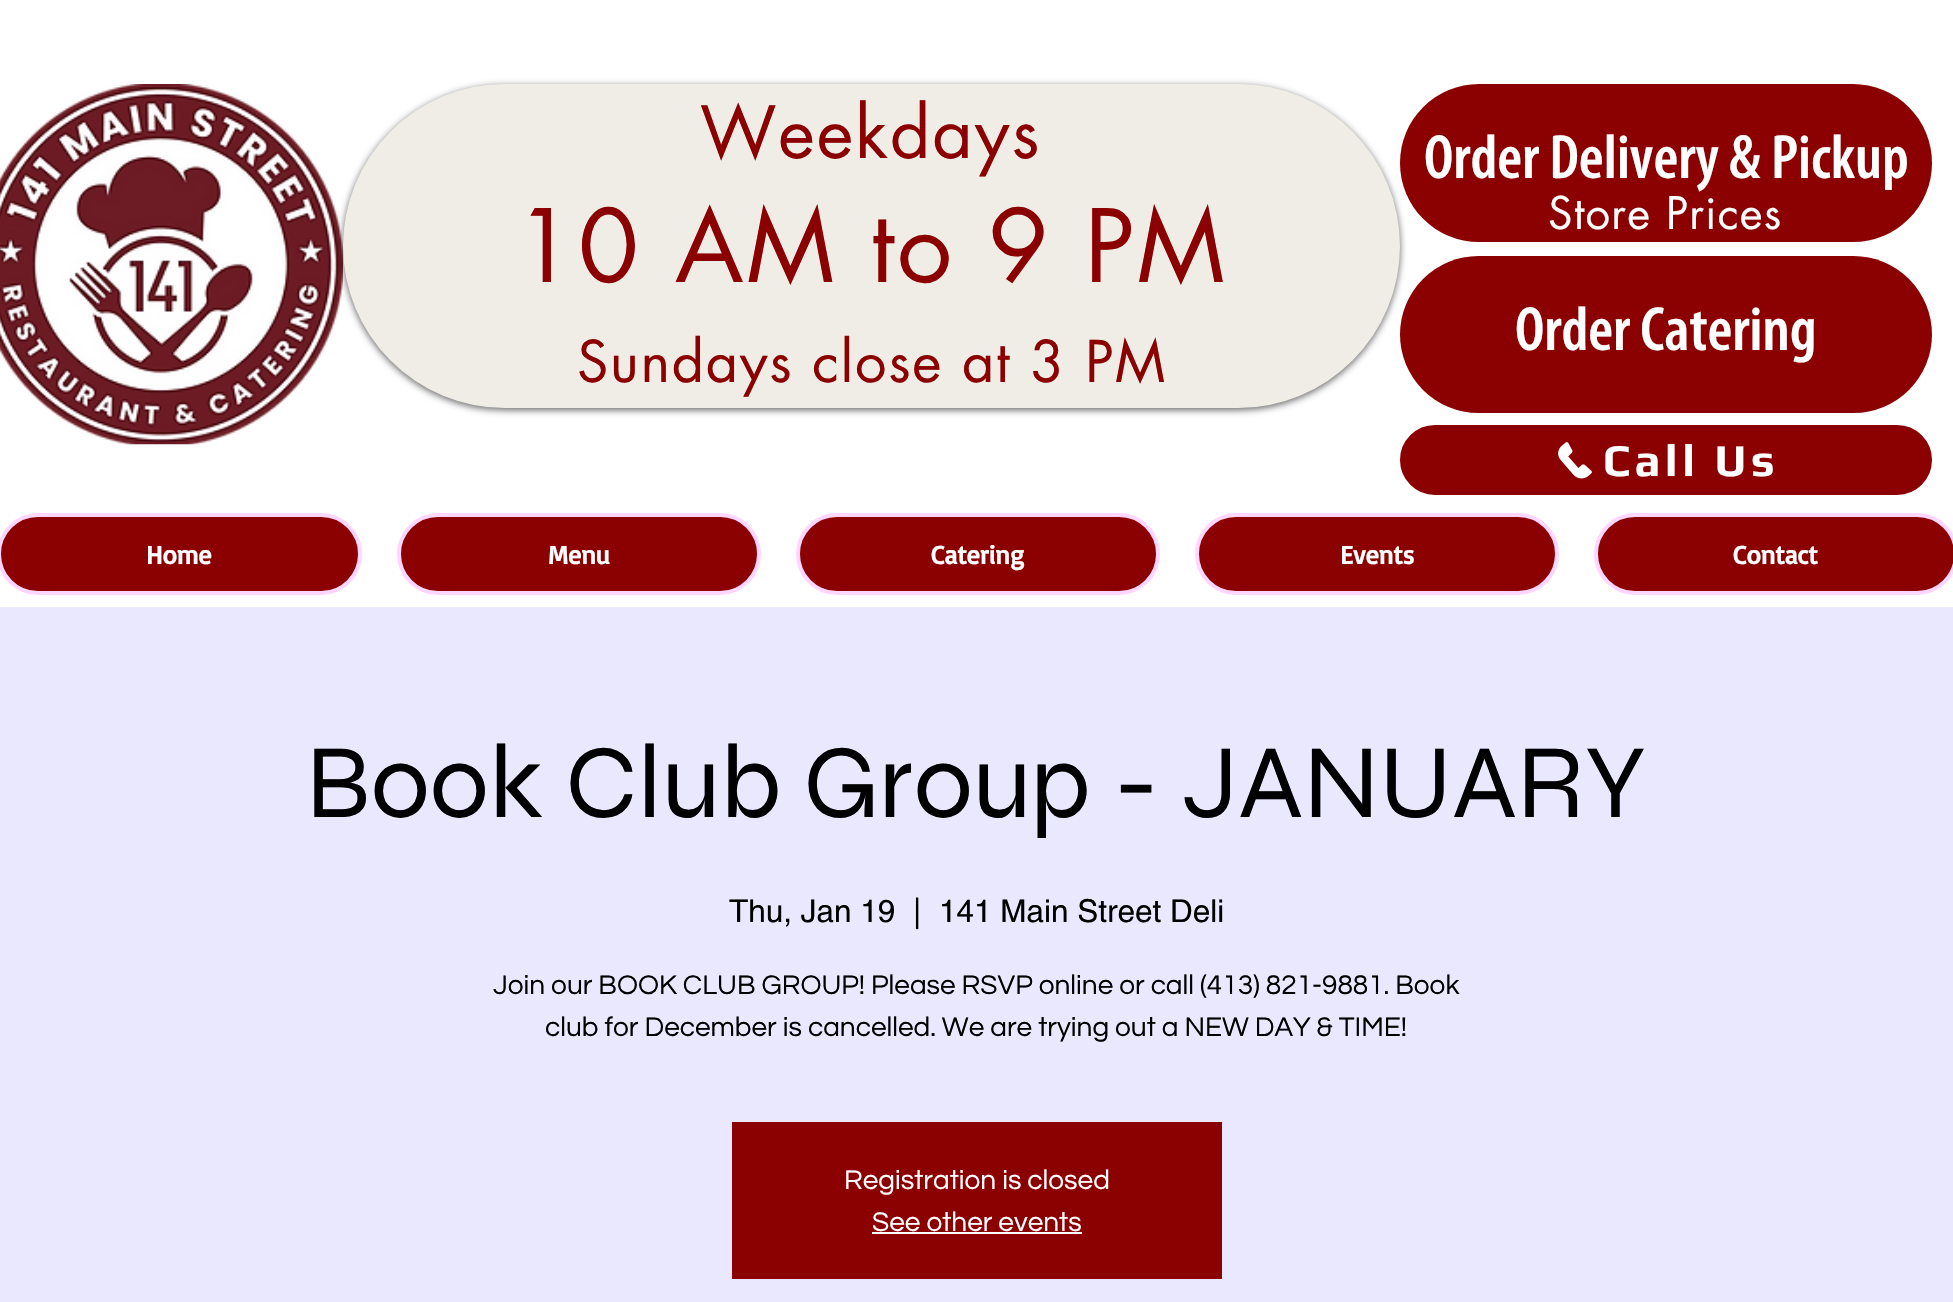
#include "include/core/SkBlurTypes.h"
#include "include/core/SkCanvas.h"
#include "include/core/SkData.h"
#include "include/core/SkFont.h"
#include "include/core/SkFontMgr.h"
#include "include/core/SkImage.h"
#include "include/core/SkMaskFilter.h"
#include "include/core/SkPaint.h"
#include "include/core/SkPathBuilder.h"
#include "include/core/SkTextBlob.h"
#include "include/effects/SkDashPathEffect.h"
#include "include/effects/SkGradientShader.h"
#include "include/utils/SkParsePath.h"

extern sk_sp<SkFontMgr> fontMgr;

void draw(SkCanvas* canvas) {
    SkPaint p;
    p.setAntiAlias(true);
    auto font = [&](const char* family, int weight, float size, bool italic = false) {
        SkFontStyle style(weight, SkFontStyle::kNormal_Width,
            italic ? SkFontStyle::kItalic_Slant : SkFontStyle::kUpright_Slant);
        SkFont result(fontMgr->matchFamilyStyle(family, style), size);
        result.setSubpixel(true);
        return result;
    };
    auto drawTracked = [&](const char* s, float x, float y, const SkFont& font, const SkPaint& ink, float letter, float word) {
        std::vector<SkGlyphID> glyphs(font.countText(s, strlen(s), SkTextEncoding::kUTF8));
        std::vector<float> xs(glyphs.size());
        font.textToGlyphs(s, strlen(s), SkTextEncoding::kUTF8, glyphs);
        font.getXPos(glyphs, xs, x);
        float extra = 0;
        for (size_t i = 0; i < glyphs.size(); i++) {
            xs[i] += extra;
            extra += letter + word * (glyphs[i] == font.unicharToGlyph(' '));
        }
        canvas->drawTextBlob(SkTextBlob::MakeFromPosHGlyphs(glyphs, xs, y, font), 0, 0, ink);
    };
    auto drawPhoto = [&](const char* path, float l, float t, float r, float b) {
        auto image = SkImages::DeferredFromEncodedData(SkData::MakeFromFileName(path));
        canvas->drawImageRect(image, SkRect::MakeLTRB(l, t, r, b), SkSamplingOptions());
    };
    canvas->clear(0xFFFFFFFF);
    drawPhoto("media/1.png", 0, 84, 343, 445);
    p.setColor(0x99000000);
    p.setMaskFilter(SkMaskFilter::MakeBlur(kNormal_SkBlurStyle, 3.5f));
    canvas->drawRoundRect(SkRect::MakeLTRB(343, 86, 1400, 410), 162, 162, p);
    p.setMaskFilter(nullptr);
    p.setColor(0xFFF0EDE6);
    canvas->drawRoundRect(SkRect::MakeLTRB(343, 84, 1400, 408), 162, 162, p);
    auto font1 = font("futura", 400, 70);
    p.setColor(0xFF8B0000);
    drawTracked("Weekdays", 700, 158, font1, p, 2, 0);
    auto font2 = font("futura", 400, 98);
    drawTracked("10 AM to 9 PM", 515, 282, font2, p, 3, 0);
    auto font3 = font("futura", 400, 56);
    drawTracked("Sundays close at 3 PM", 577, 382, font3, p, 1.7f, 0);
    canvas->drawRoundRect(SkRect::MakeLTRB(1400, 84, 1932, 242), 79, 79, p);
    auto font4 = font("Myriad", 600, 63);
    p.setColor(0xFFFFFFFF);
    canvas->drawString("Order Delivery & Pickup", 1424, 178, font4, p);
    auto font5 = font("futura", 400, 43.75f);
    drawTracked("Store Prices", 1548, 229, font5, p, 1.25f, 0);
    p.setColor(0xFF8B0000);
    canvas->drawRoundRect(SkRect::MakeLTRB(1400, 256, 1932, 413), 78.5f, 78.5f, p);
    p.setColor(0xFFFFFFFF);
    canvas->drawString("Order Catering", 1515, 350, font4, p);
    p.setColor(0xFF8B0000);
    canvas->drawRoundRect(SkRect::MakeLTRB(1402.5f, 427.5f, 1929.5f, 492.5f), 32.5f, 32.5f, p);
    p.setStyle(SkPaint::kStroke_Style);
    p.setStrokeWidth(5);
    canvas->drawRoundRect(SkRect::MakeLTRB(1402.5f, 427.5f, 1929.5f, 492.5f), 32.5f, 32.5f, p);
    drawPhoto("media/2.png", 1558, 442, 1592, 479);
    auto font6 = font("Play", 700, 45.5f);
    p.setStyle(SkPaint::kFill_Style);
    p.setColor(0xFFFFFFFF);
    drawTracked("Call Us", 1603, 476, font6, p, 4.5f, 0);
    p.setColor(0xFF8B0000);
    canvas->drawRoundRect(SkRect::MakeLTRB(-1, 515, 360, 593), 39, 39, p);
    p.setStyle(SkPaint::kStroke_Style);
    p.setStrokeWidth(4);
    p.setColor(0xFFFFD6FF);
    canvas->drawRoundRect(SkRect::MakeLTRB(-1, 515, 360, 593), 39, 39, p);
    auto font7 = font("Basic", 700, 26);
    p.setStyle(SkPaint::kFill_Style);
    p.setColor(0xFFFFFFFF);
    canvas->drawString("Home", 146, 564, font7, p);
    p.setColor(0xFF8B0000);
    canvas->drawRoundRect(SkRect::MakeLTRB(399, 515, 759, 593), 39, 39, p);
    p.setStyle(SkPaint::kStroke_Style);
    p.setColor(0xFFFFD6FF);
    canvas->drawRoundRect(SkRect::MakeLTRB(399, 515, 759, 593), 39, 39, p);
    p.setStyle(SkPaint::kFill_Style);
    p.setColor(0xFFFFFFFF);
    canvas->drawString("Menu", 548, 564, font7, p);
    p.setColor(0xFF8B0000);
    canvas->drawRoundRect(SkRect::MakeLTRB(798, 515, 1158, 593), 39, 39, p);
    p.setStyle(SkPaint::kStroke_Style);
    p.setColor(0xFFFFD6FF);
    canvas->drawRoundRect(SkRect::MakeLTRB(798, 515, 1158, 593), 39, 39, p);
    p.setStyle(SkPaint::kFill_Style);
    p.setColor(0xFFFFFFFF);
    canvas->drawString("Catering", 931, 564, font7, p);
    p.setColor(0xFF8B0000);
    canvas->drawRoundRect(SkRect::MakeLTRB(1197, 515, 1557, 593), 39, 39, p);
    p.setStyle(SkPaint::kStroke_Style);
    p.setColor(0xFFFFD6FF);
    canvas->drawRoundRect(SkRect::MakeLTRB(1197, 515, 1557, 593), 39, 39, p);
    p.setStyle(SkPaint::kFill_Style);
    p.setColor(0xFFFFFFFF);
    canvas->drawString("Events", 1340, 564, font7, p);
    p.setColor(0xFF8B0000);
    canvas->drawRoundRect(SkRect::MakeLTRB(1596, 515, 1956, 593), 39, 39, p);
    p.setStyle(SkPaint::kStroke_Style);
    p.setColor(0xFFFFD6FF);
    canvas->drawRoundRect(SkRect::MakeLTRB(1596, 515, 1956, 593), 39, 39, p);
    p.setStyle(SkPaint::kFill_Style);
    p.setColor(0xFFFFFFFF);
    canvas->drawString("Contact", 1733, 564, font7, p);
    p.setColor(0xFFE9E8FF);
    canvas->drawRect(SkRect::MakeLTRB(0, 607, 1953, 1302), p);
    auto font8 = font("Syne", 400, 105);
    p.setColor(0xFF000000);
    canvas->drawString("Book Club Group - JANUARY", 306, 817, font8, p);
    auto font9 = font("helvetica", 400, 31.5f);
    {
        const struct { const char* s; float x, y; } items[] = {
            {"Thu, Jan 19", 729, 922},
            {"|", 913, 922},
            {"141 Main Street Deli", 939, 922},
        };
        for (auto [s, x, y] : items) {
            canvas->drawString(s, x, y, font9, p);
        }
    }
    auto font10 = font("Questrial", 400, 28);
    canvas->drawString("Join our BOOK CLUB GROUP! Please RSVP online or call (413) 821-9881. Book", 493, 994, font10, p);
    canvas->drawString("club for December is cancelled. We are trying out a NEW DAY & TIME!", 545, 1036, font10, p);
    p.setColor(0xFF8B0000);
    canvas->drawRect(SkRect::MakeLTRB(732, 1122, 1222, 1279), p);
    p.setColor(0xFFFFFFFF);
    canvas->drawString("Registration is closed", 844, 1189, font10, p);
    canvas->drawString("See other events", 872, 1231, font10, p);
    canvas->drawRect(SkRect::MakeLTRB(872, 1232, 1082, 1234), p);
}
